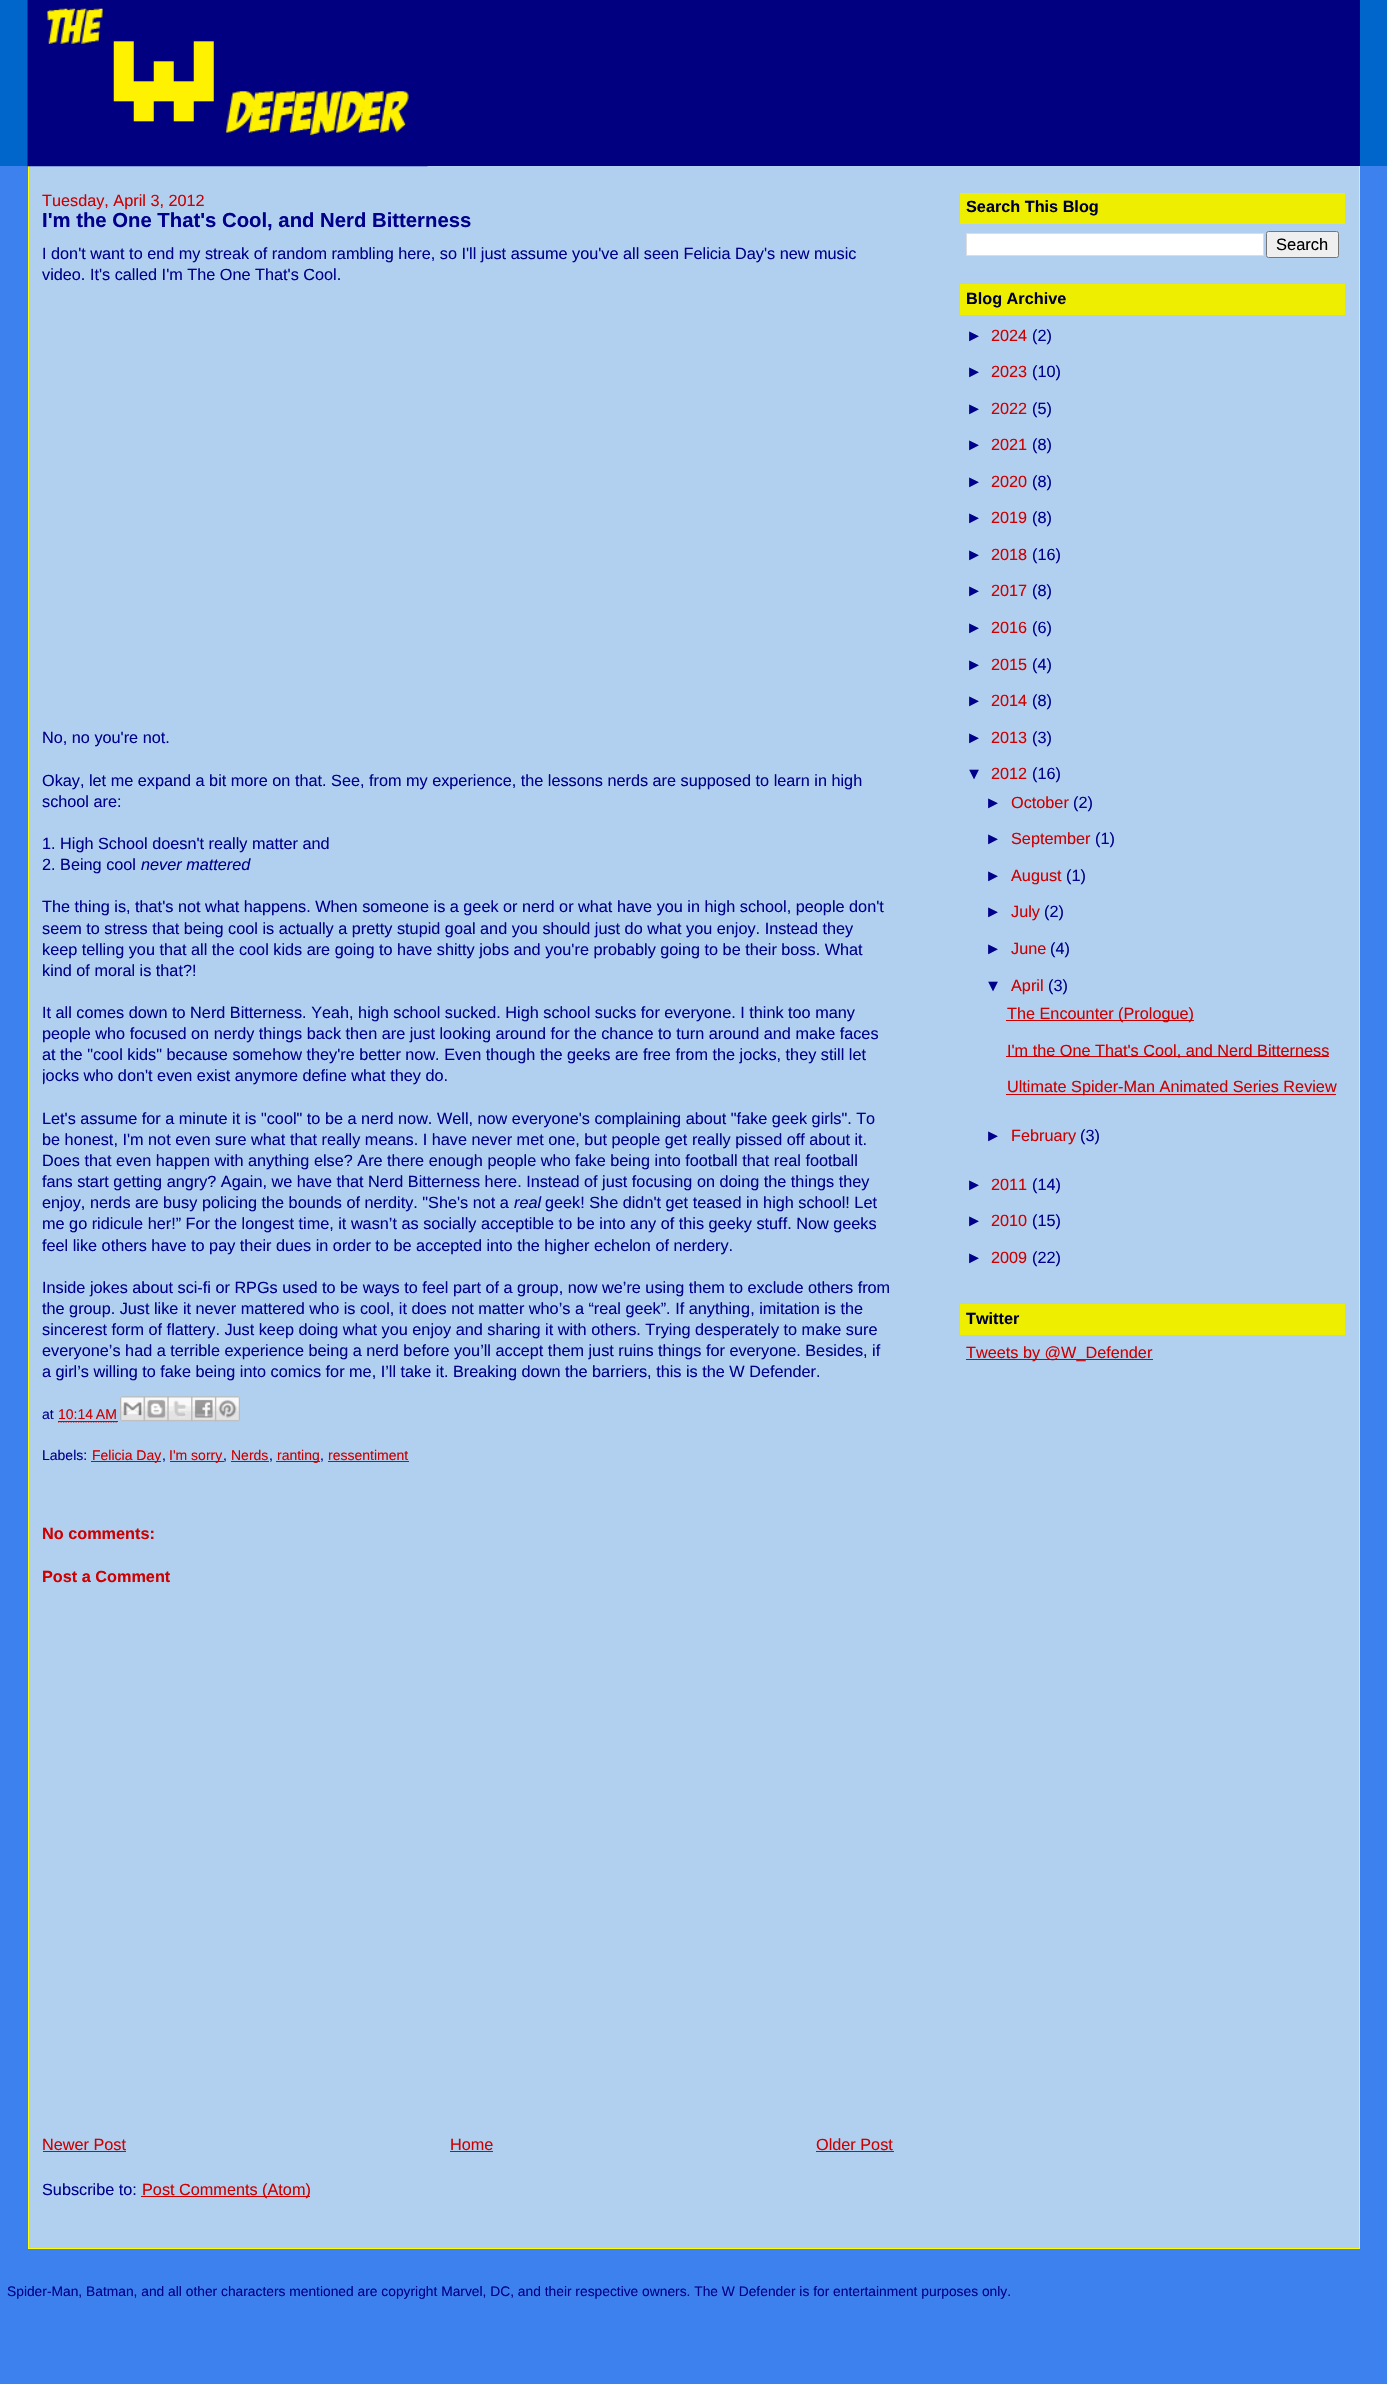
#include "include/core/SkBlurTypes.h"
#include "include/core/SkCanvas.h"
#include "include/core/SkData.h"
#include "include/core/SkFont.h"
#include "include/core/SkFontMgr.h"
#include "include/core/SkImage.h"
#include "include/core/SkMaskFilter.h"
#include "include/core/SkPaint.h"
#include "include/core/SkPathBuilder.h"
#include "include/core/SkTextBlob.h"
#include "include/effects/SkDashPathEffect.h"
#include "include/effects/SkGradientShader.h"
#include "include/utils/SkParsePath.h"

extern sk_sp<SkFontMgr> fontMgr;

void draw(SkCanvas* canvas) {
    SkPaint p;
    p.setAntiAlias(true);
    auto font = [&](const char* family, int weight, float size, bool italic = false) {
        SkFontStyle style(weight, SkFontStyle::kNormal_Width,
            italic ? SkFontStyle::kItalic_Slant : SkFontStyle::kUpright_Slant);
        SkFont result(fontMgr->matchFamilyStyle(family, style), size);
        result.setSubpixel(true);
        return result;
    };
    auto drawPhoto = [&](const char* path, float l, float t, float r, float b) {
        auto image = SkImages::DeferredFromEncodedData(SkData::MakeFromFileName(path));
        canvas->drawImageRect(image, SkRect::MakeLTRB(l, t, r, b), SkSamplingOptions());
    };
    canvas->clear(0xFF3D81EE);
    {
        const struct { float l, t, r, b; SkColor color; } items[] = {
            {0, 0, 1387, 166, 0xFF0066CC},
            {427, 0, 1360, 166, 0xFF000080},
            {29, 166, 1359, 2248, 0xFFB1D0F0},
            {1359, 166, 1360, 2249, 0xFFFFFF00},
            {28, 2248, 1360, 2249, 0xFFFFFF00},
            {28, 166, 29, 2249, 0xFFFFFF00},
        };
        for (auto [l, t, r, b, color] : items) {
            p.setColor(color);
            canvas->drawRect(SkRect::MakeLTRB(l, t, r, b), p);
        }
    }
    drawPhoto("media/1.png", 27, 0, 428, 167);
    auto font1 = font("Liberation Sans", 400, 16.25f);
    p.setColor(0xFFCC0000);
    canvas->drawString("Tuesday, April 3, 2012", 42, 206, font1, p);
    auto font2 = font("Liberation Sans", 700, 20.3f);
    p.setColor(0xFF00008B);
    canvas->drawString("I'm the One That's Cool, and Nerd Bitterness", 42, 227, font2, p);
    {
        const struct { const char* s; float x, y; } items[] = {
            {"I don't want to end my streak of random rambling here, so I'll just assume you've all seen Felicia Day's new music", 42, 259},
            {"video. It's called I'm The One That's Cool.", 42, 280},
            {"No, no you're not.", 42, 743},
            {"Okay, let me expand a bit more on that. See, from my experience, the lessons nerds are supposed to learn in high", 42, 786},
            {"school are:", 42, 807},
            {"1. High School doesn't really matter and", 42, 849},
            {"2. Being cool", 42, 870},
        };
        for (auto [s, x, y] : items) {
            canvas->drawString(s, x, y, font1, p);
        }
    }
    auto font3 = font("Liberation Sans", 400, 16.25f, true);
    canvas->drawString("never mattered", 141, 870, font3, p);
    {
        const struct { const char* s; float x, y; } items[] = {
            {"The thing is, that's not what happens. When someone is a geek or nerd or what have you in high school, people don't", 42, 912},
            {"seem to stress that being cool is actually a pretty stupid goal and you should just do what you enjoy. Instead they", 42, 934},
            {"keep telling you that all the cool kids are going to have shitty jobs and you're probably going to be their boss. What", 42, 955},
            {"kind of moral is that?!", 42, 976},
            {"It all comes down to Nerd Bitterness. Yeah, high school sucked. High school sucks for everyone. I think too many", 42, 1018},
            {"people who focused on nerdy things back then are just looking around for the chance to turn around and make faces", 42, 1039},
            {"at the \"cool kids\" because somehow they're better now. Even though the geeks are free from the jocks, they still let", 42, 1060},
        };
        for (auto [s, x, y] : items) {
            canvas->drawString(s, x, y, font1, p);
        }
    }
    canvas->save();
    canvas->clipRect(SkRect::MakeLTRB(43, 166, 894, 2210));
    canvas->drawString("jocks who don't even exist anymore define what they do.", 42, 1081, font1, p);
    canvas->restore();
    {
        const struct { const char* s; float x, y; } items[] = {
            {"Let's assume for a minute it is \"cool\" to be a nerd now. Well, now everyone's complaining about \"fake geek girls\". To", 42, 1124},
            {"be honest, I'm not even sure what that really means. I have never met one, but people get really pissed off about it.", 42, 1145},
            {"Does that even happen with anything else? Are there enough people who fake being into football that real football", 42, 1166},
            {"fans start getting angry? Again, we have that Nerd Bitterness here. Instead of just focusing on doing the things they", 42, 1187},
            {"enjoy, nerds are busy policing the bounds of nerdity. \"She's not a", 42, 1208},
        };
        for (auto [s, x, y] : items) {
            canvas->drawString(s, x, y, font1, p);
        }
    }
    canvas->drawString("real", 514, 1208, font3, p);
    {
        const struct { const char* s; float x, y; } items[] = {
            {"geek! She didn't get teased in high school! Let", 545, 1208},
            {"me go ridicule her!” For the longest time, it wasn’t as socially acceptible to be into any of this geeky stuff. Now geeks", 42, 1229},
            {"feel like others have to pay their dues in order to be accepted into the higher echelon of nerdery.", 42, 1251},
            {"Inside jokes about sci-fi or RPGs used to be ways to feel part of a group, now we’re using them to exclude others from", 42, 1293},
            {"the group. Just like it never mattered who is cool, it does not matter who’s a “real geek”. If anything, imitation is the", 42, 1314},
            {"sincerest form of flattery. Just keep doing what you enjoy and sharing it with others. Trying desperately to make sure", 42, 1335},
            {"everyone’s had a terrible experience being a nerd before you’ll accept them just ruins things for everyone. Besides, if", 42, 1356},
            {"a girl’s willing to fake being into comics for me, I’ll take it. Breaking down the barriers, this is the W Defender.", 42, 1377},
        };
        for (auto [s, x, y] : items) {
            canvas->drawString(s, x, y, font1, p);
        }
    }
    auto font4 = font("Liberation Sans", 400, 14);
    canvas->drawString("at", 42, 1419, font4, p);
    p.setColor(0xFFCC0000);
    canvas->drawString("10:14 AM", 58, 1419, font4, p);
    p.setStyle(SkPaint::kStroke_Style);
    p.setStrokeWidth(1.2f);
    p.setPathEffect(SkDashPathEffect::Make({{1.25f, 1.25f}}, 0));
    canvas->drawPath(SkPathBuilder().moveTo(58, 1422).lineTo(117.5f, 1422).detach(), p);
    p.setPathEffect(nullptr);
    p.setStyle(SkPaint::kFill_Style);
    canvas->drawRect(SkRect::MakeLTRB(58, 1421, 118, 1422), p);
    drawPhoto("media/2.png", 120, 1396, 145, 1422);
    drawPhoto("media/3.png", 143, 1396, 169, 1422);
    drawPhoto("media/4.png", 167, 1396, 193, 1422);
    drawPhoto("media/5.png", 191, 1396, 217, 1422);
    drawPhoto("media/6.png", 215, 1396, 240, 1422);
    p.setColor(0xFF00008B);
    canvas->drawString("Labels:", 42, 1460, font4, p);
    p.setColor(0xFFCC0000);
    canvas->drawRect(SkRect::MakeLTRB(91, 1461, 161, 1462), p);
    canvas->drawString("Felicia Day", 92, 1460, font4, p);
    p.setColor(0xFF00008B);
    canvas->drawString(",", 162, 1460, font4, p);
    p.setColor(0xFFCC0000);
    canvas->drawRect(SkRect::MakeLTRB(170, 1461, 224, 1462), p);
    canvas->drawString("I'm sorry", 169, 1460, font4, p);
    p.setColor(0xFF00008B);
    canvas->drawString(",", 223, 1460, font4, p);
    p.setColor(0xFFCC0000);
    canvas->drawString("Nerds", 231, 1460, font4, p);
    p.setColor(0xFF00008B);
    canvas->drawString(",", 269, 1460, font4, p);
    p.setColor(0xFFCC0000);
    canvas->drawRect(SkRect::MakeLTRB(231, 1461, 269, 1462), p);
    canvas->drawRect(SkRect::MakeLTRB(276, 1461, 320, 1462), p);
    canvas->drawString("ranting", 277, 1460, font4, p);
    p.setColor(0xFF00008B);
    canvas->drawString(",", 320, 1460, font4, p);
    p.setColor(0xFFCC0000);
    canvas->drawRect(SkRect::MakeLTRB(328, 1461, 409, 1462), p);
    canvas->drawString("ressentiment", 328, 1460, font4, p);
    auto font5 = font("Liberation Sans", 700, 16.25f);
    canvas->drawString("No comments:", 42, 1539, font5, p);
    canvas->drawString("Post a Comment", 42, 1582, font5, p);
    canvas->drawString("Newer Post", 42, 2150, font1, p);
    canvas->drawRect(SkRect::MakeLTRB(43, 2151, 126, 2152), p);
    canvas->drawString("Home", 450, 2150, font1, p);
    canvas->drawRect(SkRect::MakeLTRB(450, 2151, 493, 2152), p);
    canvas->drawString("Older Post", 816, 2150, font1, p);
    canvas->drawRect(SkRect::MakeLTRB(816, 2151, 894, 2152), p);
    p.setColor(0xFF00008B);
    canvas->drawString("Subscribe to:", 42, 2195, font1, p);
    p.setColor(0xFFCC0000);
    canvas->drawRect(SkRect::MakeLTRB(141, 2196, 310, 2197), p);
    canvas->drawString("Post Comments (Atom)", 142, 2195, font1, p);
    p.setColor(0xFFEEEE00);
    canvas->drawRect(SkRect::MakeLTRB(960, 193, 1345, 224), p);
    p.setColor(0xFF000033);
    canvas->drawString("Search This Blog", 966, 212, font5, p);
    p.setColor(0xFFFFFFFF);
    canvas->drawRect(SkRect::MakeLTRB(966.5f, 233.5f, 1263.5f, 255.5f), p);
    p.setStyle(SkPaint::kStroke_Style);
    p.setStrokeWidth(1);
    p.setColor(0xFFDDDDDD);
    canvas->drawRect(SkRect::MakeLTRB(966.5f, 233.5f, 1263.5f, 255.5f), p);
    p.setStyle(SkPaint::kFill_Style);
    p.setColor(0xFFEFEFEF);
    canvas->drawRoundRect(SkRect::MakeLTRB(1266.5f, 231.5f, 1338.5f, 257.5f), 2, 2, p);
    p.setStyle(SkPaint::kStroke_Style);
    p.setColor(0xFF767676);
    canvas->drawRoundRect(SkRect::MakeLTRB(1266.5f, 231.5f, 1338.5f, 257.5f), 2, 2, p);
    auto font6 = font("Liberation Sans", 400, 16.5f);
    p.setStyle(SkPaint::kFill_Style);
    p.setColor(0xFF000000);
    canvas->drawString("Search", 1276, 250, font6, p);
    p.setColor(0xFFEEEE00);
    canvas->drawRect(SkRect::MakeLTRB(960, 284, 1345, 315), p);
    p.setColor(0xFF000033);
    canvas->drawString("Blog Archive", 966, 304, font5, p);
    p.setColor(0xFF00008B);
    canvas->drawString("►", 966, 341, font1, p);
    p.setColor(0xFFCC0000);
    canvas->drawString("2024", 991, 341, font1, p);
    p.setColor(0xFF00008B);
    canvas->drawString("(2)", 1032, 341, font1, p);
    canvas->drawString("►", 966, 377, font1, p);
    p.setColor(0xFFCC0000);
    canvas->drawString("2023", 991, 377, font1, p);
    p.setColor(0xFF00008B);
    canvas->drawString("(10)", 1032, 377, font1, p);
    canvas->drawString("►", 966, 414, font1, p);
    p.setColor(0xFFCC0000);
    canvas->drawString("2022", 991, 414, font1, p);
    p.setColor(0xFF00008B);
    canvas->drawString("(5)", 1032, 414, font1, p);
    canvas->drawString("►", 966, 450, font1, p);
    p.setColor(0xFFCC0000);
    canvas->drawString("2021", 991, 450, font1, p);
    p.setColor(0xFF00008B);
    canvas->drawString("(8)", 1032, 450, font1, p);
    canvas->drawString("►", 966, 487, font1, p);
    p.setColor(0xFFCC0000);
    canvas->drawString("2020", 991, 487, font1, p);
    p.setColor(0xFF00008B);
    canvas->drawString("(8)", 1032, 487, font1, p);
    canvas->drawString("►", 966, 523, font1, p);
    p.setColor(0xFFCC0000);
    canvas->drawString("2019", 991, 523, font1, p);
    p.setColor(0xFF00008B);
    canvas->drawString("(8)", 1032, 523, font1, p);
    canvas->drawString("►", 966, 560, font1, p);
    p.setColor(0xFFCC0000);
    canvas->drawString("2018", 991, 560, font1, p);
    p.setColor(0xFF00008B);
    canvas->drawString("(16)", 1032, 560, font1, p);
    canvas->drawString("►", 966, 596, font1, p);
    p.setColor(0xFFCC0000);
    canvas->drawString("2017", 991, 596, font1, p);
    p.setColor(0xFF00008B);
    canvas->drawString("(8)", 1032, 596, font1, p);
    canvas->drawString("►", 966, 633, font1, p);
    p.setColor(0xFFCC0000);
    canvas->drawString("2016", 991, 633, font1, p);
    p.setColor(0xFF00008B);
    canvas->drawString("(6)", 1032, 633, font1, p);
    canvas->drawString("►", 966, 670, font1, p);
    p.setColor(0xFFCC0000);
    canvas->drawString("2015", 991, 670, font1, p);
    p.setColor(0xFF00008B);
    canvas->drawString("(4)", 1032, 670, font1, p);
    canvas->drawString("►", 966, 706, font1, p);
    p.setColor(0xFFCC0000);
    canvas->drawString("2014", 991, 706, font1, p);
    p.setColor(0xFF00008B);
    canvas->drawString("(8)", 1032, 706, font1, p);
    canvas->drawString("►", 966, 743, font1, p);
    p.setColor(0xFFCC0000);
    canvas->drawString("2013", 991, 743, font1, p);
    p.setColor(0xFF00008B);
    canvas->drawString("(3)", 1032, 743, font1, p);
    canvas->drawString("▼", 966, 779, font1, p);
    p.setColor(0xFFCC0000);
    canvas->drawString("2012", 991, 779, font1, p);
    p.setColor(0xFF00008B);
    canvas->drawString("(16)", 1032, 779, font1, p);
    canvas->drawString("►", 985, 808, font1, p);
    p.setColor(0xFFCC0000);
    canvas->drawString("October", 1011, 808, font1, p);
    p.setColor(0xFF00008B);
    canvas->drawString("(2)", 1073, 808, font1, p);
    canvas->drawString("►", 985, 844, font1, p);
    p.setColor(0xFFCC0000);
    canvas->drawString("September", 1011, 844, font1, p);
    p.setColor(0xFF00008B);
    canvas->drawString("(1)", 1095, 844, font1, p);
    canvas->drawString("►", 985, 881, font1, p);
    p.setColor(0xFFCC0000);
    canvas->drawString("August", 1011, 881, font1, p);
    p.setColor(0xFF00008B);
    canvas->drawString("(1)", 1066, 881, font1, p);
    canvas->drawString("►", 985, 917, font1, p);
    p.setColor(0xFFCC0000);
    canvas->drawString("July", 1011, 917, font1, p);
    p.setColor(0xFF00008B);
    canvas->drawString("(2)", 1044, 917, font1, p);
    canvas->drawString("►", 985, 954, font1, p);
    p.setColor(0xFFCC0000);
    canvas->drawString("June", 1011, 954, font1, p);
    p.setColor(0xFF00008B);
    canvas->drawString("(4)", 1050, 954, font1, p);
    canvas->drawString("▼", 985, 991, font1, p);
    p.setColor(0xFFCC0000);
    canvas->drawString("April", 1011, 991, font1, p);
    p.setColor(0xFF00008B);
    canvas->drawString("(3)", 1048, 991, font1, p);
    p.setColor(0xFFCC0000);
    canvas->drawRect(SkRect::MakeLTRB(1006, 1020, 1194, 1021), p);
    canvas->drawString("The Encounter (Prologue)", 1007, 1019, font1, p);
    canvas->drawRect(SkRect::MakeLTRB(1006, 1056, 1329, 1057), p);
    canvas->drawString("I'm the One That's Cool, and Nerd Bitterness", 1007, 1056, font1, p);
    canvas->drawRect(SkRect::MakeLTRB(1006, 1094, 1336, 1095), p);
    canvas->drawString("Ultimate Spider-Man Animated Series Review", 1007, 1092, font1, p);
    p.setColor(0xFF00008B);
    canvas->drawString("►", 985, 1141, font1, p);
    p.setColor(0xFFCC0000);
    canvas->drawString("February", 1011, 1141, font1, p);
    p.setColor(0xFF00008B);
    canvas->drawString("(3)", 1080, 1141, font1, p);
    canvas->drawString("►", 966, 1190, font1, p);
    p.setColor(0xFFCC0000);
    canvas->drawString("2011", 991, 1190, font1, p);
    p.setColor(0xFF00008B);
    canvas->drawString("(14)", 1032, 1190, font1, p);
    canvas->drawString("►", 966, 1226, font1, p);
    p.setColor(0xFFCC0000);
    canvas->drawString("2010", 991, 1226, font1, p);
    p.setColor(0xFF00008B);
    canvas->drawString("(15)", 1032, 1226, font1, p);
    canvas->drawString("►", 966, 1263, font1, p);
    p.setColor(0xFFCC0000);
    canvas->drawString("2009", 991, 1263, font1, p);
    p.setColor(0xFF00008B);
    canvas->drawString("(22)", 1032, 1263, font1, p);
    p.setColor(0xFFEEEE00);
    canvas->drawRect(SkRect::MakeLTRB(960, 1304, 1345, 1335), p);
    p.setColor(0xFF000033);
    canvas->drawString("Twitter", 966, 1324, font5, p);
    p.setColor(0xFFCC0000);
    canvas->drawRect(SkRect::MakeLTRB(966, 1359, 1153, 1360), p);
    canvas->drawString("Tweets by @W_Defender", 966, 1358, font1, p);
    auto font7 = font("Liberation Sans", 400, 13.8f);
    p.setColor(0xFF00008B);
    canvas->drawString("Spider-Man, Batman, and all other characters mentioned are copyright Marvel, DC, and their respective owners. The W Defender is for entertainment purposes only.", 7, 2296, font7, p);
}
